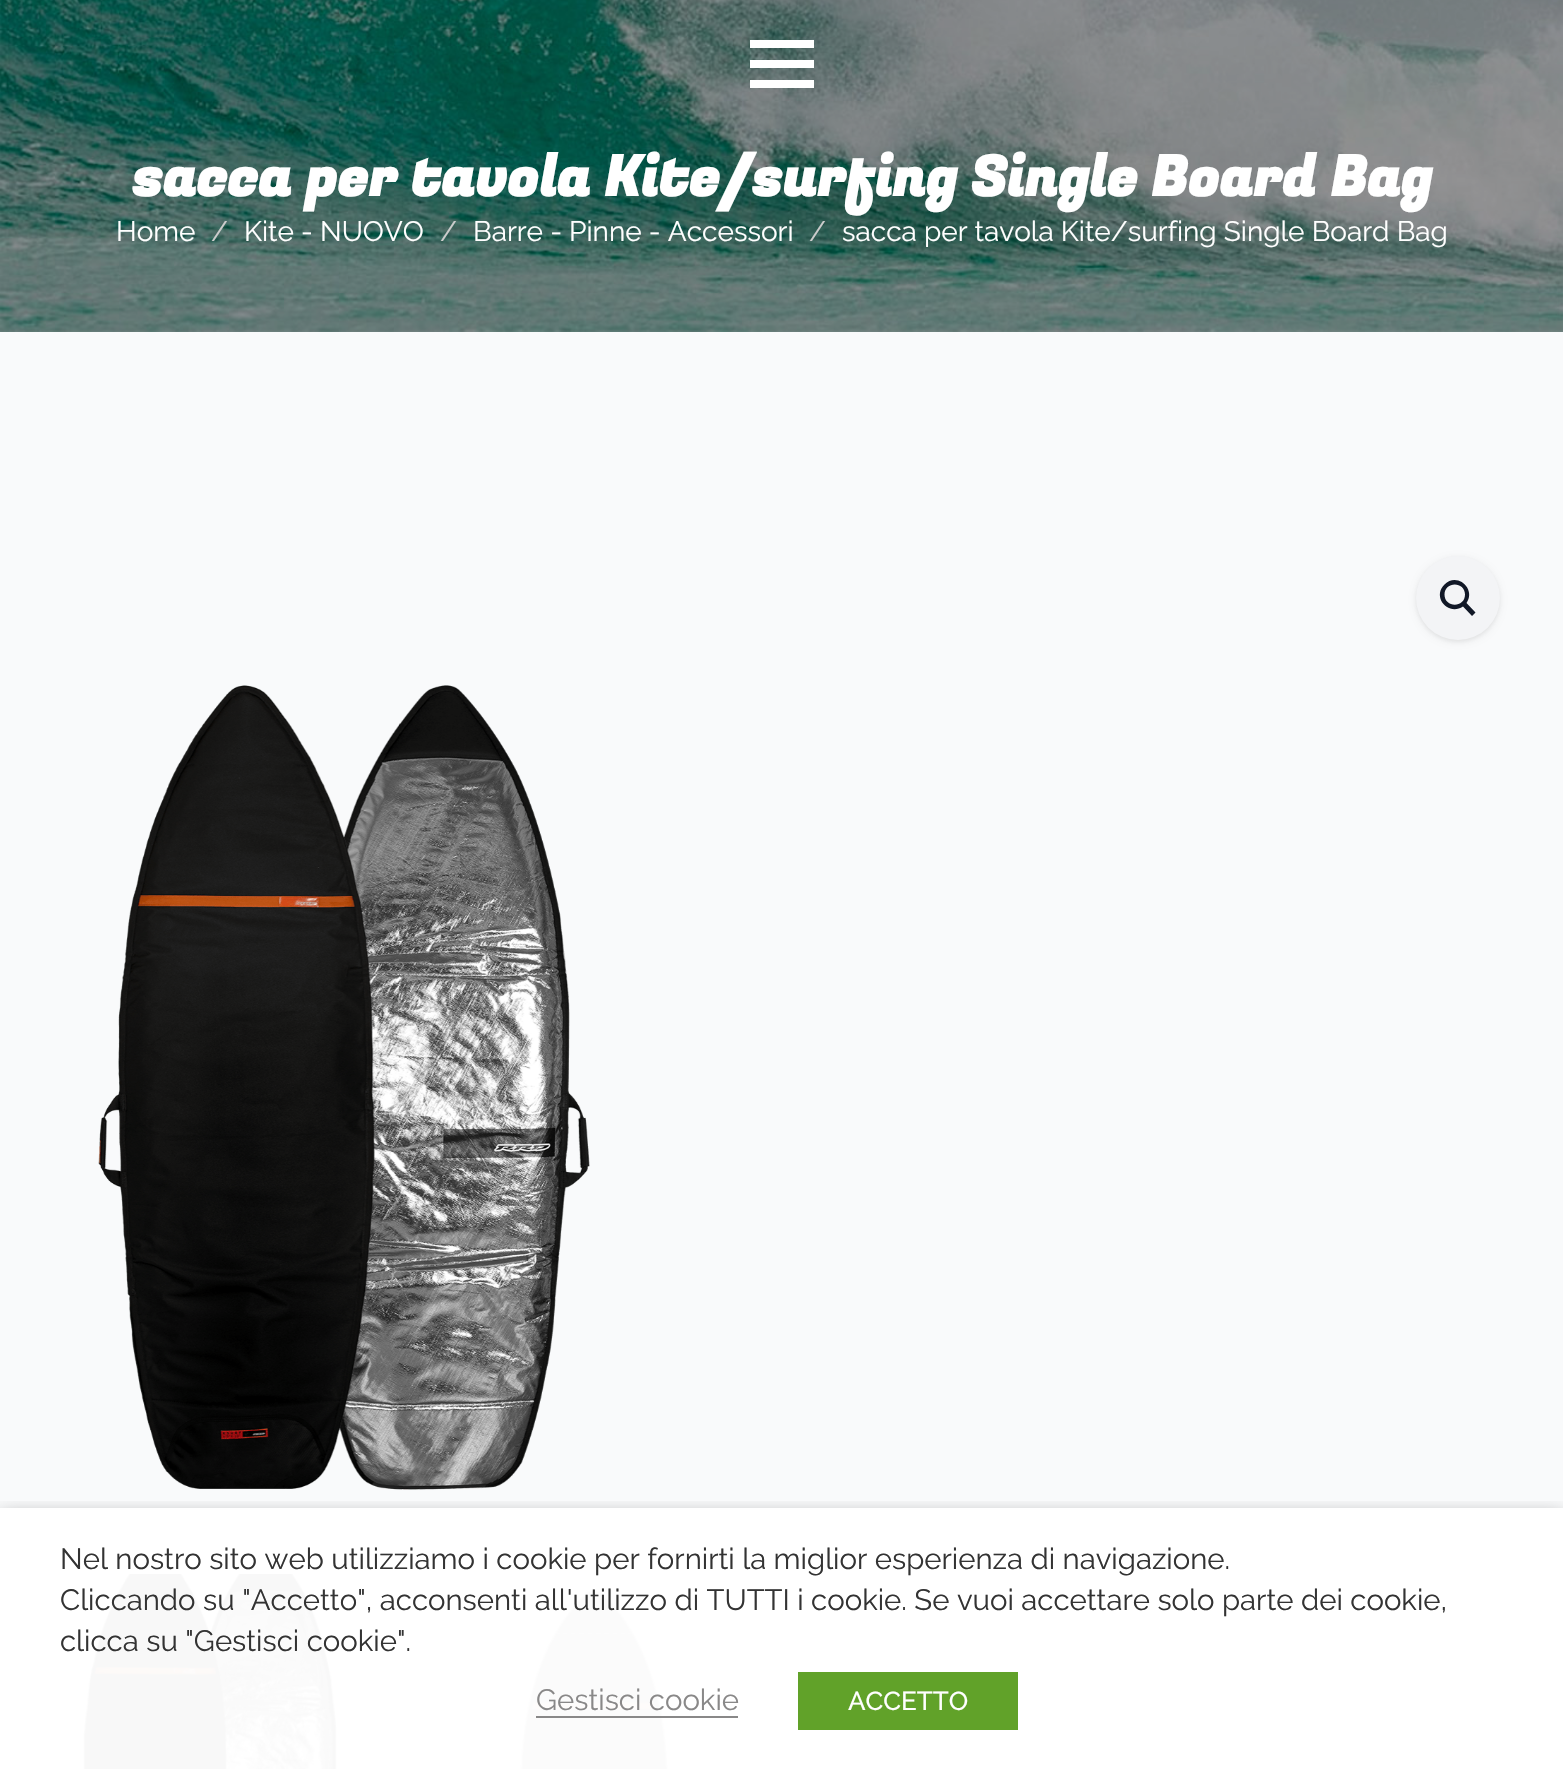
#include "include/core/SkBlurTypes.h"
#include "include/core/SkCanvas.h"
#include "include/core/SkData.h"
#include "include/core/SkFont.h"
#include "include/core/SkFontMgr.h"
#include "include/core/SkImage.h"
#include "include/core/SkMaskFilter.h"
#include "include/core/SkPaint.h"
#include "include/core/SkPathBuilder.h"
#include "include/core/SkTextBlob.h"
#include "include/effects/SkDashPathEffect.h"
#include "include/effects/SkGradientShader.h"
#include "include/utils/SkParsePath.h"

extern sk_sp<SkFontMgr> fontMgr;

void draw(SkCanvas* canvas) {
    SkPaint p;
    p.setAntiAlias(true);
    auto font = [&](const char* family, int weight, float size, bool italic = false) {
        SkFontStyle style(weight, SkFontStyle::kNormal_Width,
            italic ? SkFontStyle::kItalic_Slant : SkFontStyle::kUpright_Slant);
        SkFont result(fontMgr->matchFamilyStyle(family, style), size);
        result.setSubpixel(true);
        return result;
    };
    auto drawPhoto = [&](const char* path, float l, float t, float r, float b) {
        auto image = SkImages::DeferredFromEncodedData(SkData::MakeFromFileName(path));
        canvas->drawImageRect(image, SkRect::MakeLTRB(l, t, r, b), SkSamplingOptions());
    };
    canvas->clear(0xFFF9FAFB);
    p.setColor(0xFFFFFFFF);
    canvas->drawRect(SkRect::MakeLTRB(0, 1508, 1563, 1769), p);
    drawPhoto("media/1.png", 0, 0, 1563, 332);
    {
        const struct { float l, t, r, b; SkColor color; } items[] = {
            {750, 60, 814, 68, 0xFFFFFFFF},
            {750, 40, 814, 48, 0xFFFFFFFF},
            {750, 80, 814, 88, 0xFFFFFFFF},
        };
        for (auto [l, t, r, b, color] : items) {
            p.setColor(color);
            canvas->drawRect(SkRect::MakeLTRB(l, t, r, b), p);
        }
    }
    auto font1 = font("Fugaz One", 700, 56);
    canvas->drawString("sacca per tavola Kite/surfing Single Board Bag", 132, 196, font1, p);
    auto font2 = font("Raleway", 400, 28);
    canvas->drawString("Home", 116, 241, font2, p);
    p.setColor(0xFFCCCCCC);
    canvas->drawString("/", 211, 241, font2, p);
    p.setColor(0xFFFFFFFF);
    canvas->drawString("Kite - NUOVO", 244, 241, font2, p);
    p.setColor(0xFFCCCCCC);
    canvas->drawString("/", 440, 241, font2, p);
    p.setColor(0xFFFFFFFF);
    canvas->drawString("Barre - Pinne - Accessori", 473, 241, font2, p);
    p.setColor(0xFFCCCCCC);
    canvas->drawString("/", 809, 241, font2, p);
    p.setColor(0xFFFFFFFF);
    canvas->drawString("sacca per tavola Kite/surfing Single Board Bag", 842, 241, font2, p);
    p.setColor(0x0D000000);
    p.setMaskFilter(SkMaskFilter::MakeBlur(kNormal_SkBlurStyle, 2));
    canvas->drawRoundRect(SkRect::MakeLTRB(1416, 558, 1500, 642), 42, 42, p);
    p.setMaskFilter(nullptr);
    p.setMaskFilter(SkMaskFilter::MakeBlur(kNormal_SkBlurStyle, 3));
    canvas->drawRoundRect(SkRect::MakeLTRB(1416, 558, 1500, 642), 42, 42, p);
    p.setMaskFilter(nullptr);
    p.setColor(0xFFF3F4F6);
    canvas->drawCircle(1458, 598, 42, p);
    p.setColor(0xFF111827);
    canvas->drawPath(SkPathBuilder().moveTo(1475.5f, 612.5f).lineTo(1466.5f, 603).cubicTo(1476.5f, 589, 1457, 571.5f, 1444.5f, 584.5f).cubicTo(1431.5f, 597, 1448.5f, 616.5f, 1463, 606.5f).lineTo(1472, 616).close().moveTo(1444.5f, 594.5f).cubicTo(1444.5f, 581, 1465, 581, 1465, 594.5f).cubicTo(1465, 608, 1444.5f, 608, 1444.5f, 594.5f).close().detach(), p);
    drawPhoto("media/2.png", 98, 685, 590, 1490);
    drawPhoto("media/3.png", 83, 1574, 337, 1769);
    drawPhoto("media/4.png", 520, 1591, 668, 1769);
    canvas->save();
    canvas->clipRect(SkRect::MakeLTRB(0, 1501, 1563, 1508));
    p.setColor(0x80000000);
    p.setMaskFilter(SkMaskFilter::MakeBlur(kNormal_SkBlurStyle, 10));
    canvas->drawRect(SkRect::MakeLTRB(0, 1518, 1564, 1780), p);
    p.setMaskFilter(nullptr);
    canvas->restore();
    auto font3 = font("Raleway", 400, 29.35f);
    p.setColor(0xFF333333);
    {
        const struct { const char* s; float x, y; } items[] = {
            {"Nel nostro sito web utilizziamo i cookie per fornirti la miglior esperienza di navigazione.", 60, 1569},
            {"Cliccando su \"Accetto\", acconsenti all'utilizzo di TUTTI i cookie. Se vuoi accettare solo parte dei cookie,", 60, 1610},
            {"clicca su \"Gestisci cookie\".", 60, 1651},
        };
        for (auto [s, x, y] : items) {
            canvas->drawString(s, x, y, font3, p);
        }
    }
    p.setColor(0xFF898888);
    canvas->drawString("Gestisci cookie", 536, 1710, font3, p);
    canvas->drawRect(SkRect::MakeLTRB(536, 1716, 738, 1718), p);
    p.setColor(0xFF61A229);
    canvas->drawRect(SkRect::MakeLTRB(798, 1672, 1018, 1730), p);
    auto font4 = font("Raleway", 500, 26);
    p.setColor(0xFFFFFFFF);
    canvas->drawString("ACCETTO", 848, 1710, font4, p);
}
